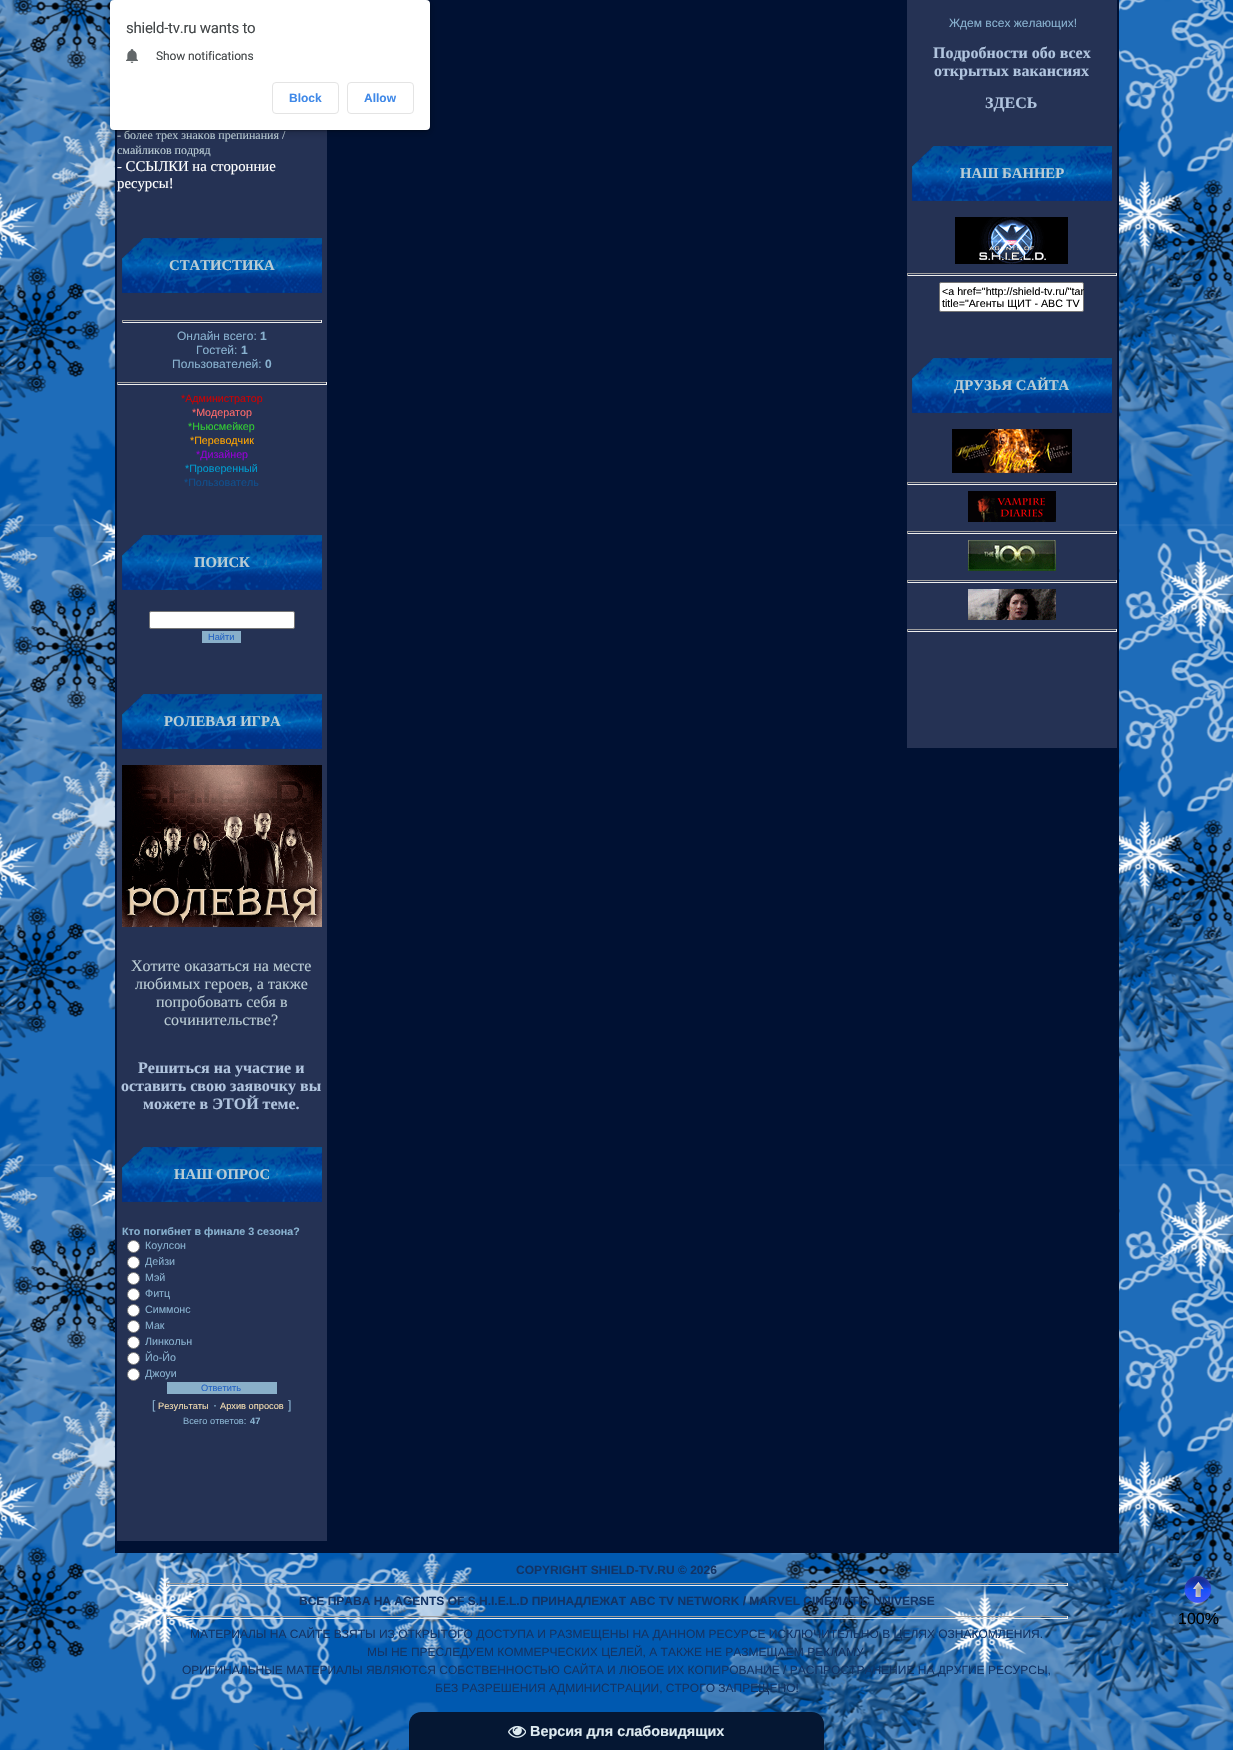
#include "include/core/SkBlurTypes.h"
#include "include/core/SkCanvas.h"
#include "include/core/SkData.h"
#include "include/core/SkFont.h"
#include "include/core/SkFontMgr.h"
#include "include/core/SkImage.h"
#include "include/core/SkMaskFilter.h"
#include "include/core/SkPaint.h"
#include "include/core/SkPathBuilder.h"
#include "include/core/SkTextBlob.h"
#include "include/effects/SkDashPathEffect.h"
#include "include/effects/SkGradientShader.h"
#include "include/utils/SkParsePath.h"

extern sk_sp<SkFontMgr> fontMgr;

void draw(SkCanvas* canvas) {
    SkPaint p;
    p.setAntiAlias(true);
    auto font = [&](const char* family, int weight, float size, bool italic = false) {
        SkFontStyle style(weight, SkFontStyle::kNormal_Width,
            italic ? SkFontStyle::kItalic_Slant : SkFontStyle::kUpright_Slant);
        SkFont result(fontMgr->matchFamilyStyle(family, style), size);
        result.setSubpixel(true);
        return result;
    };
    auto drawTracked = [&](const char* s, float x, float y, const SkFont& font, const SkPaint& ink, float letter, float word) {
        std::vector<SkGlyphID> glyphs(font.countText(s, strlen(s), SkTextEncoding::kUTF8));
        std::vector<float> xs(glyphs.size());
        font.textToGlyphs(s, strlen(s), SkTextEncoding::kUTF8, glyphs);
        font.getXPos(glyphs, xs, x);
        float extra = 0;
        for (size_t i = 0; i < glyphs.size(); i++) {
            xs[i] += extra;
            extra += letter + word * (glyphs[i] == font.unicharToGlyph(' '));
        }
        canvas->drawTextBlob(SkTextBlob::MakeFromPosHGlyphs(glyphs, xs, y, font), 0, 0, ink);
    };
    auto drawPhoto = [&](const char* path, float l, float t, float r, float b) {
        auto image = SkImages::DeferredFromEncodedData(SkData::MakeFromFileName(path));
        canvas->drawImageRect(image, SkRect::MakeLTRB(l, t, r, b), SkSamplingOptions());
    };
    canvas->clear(0xFFFFFFFF);
    drawPhoto("media/1.png", 0, 0, 1233, 1750);
    p.setColor(0xFF001133);
    canvas->drawRect(SkRect::MakeLTRB(115, 0, 1119, 1553), p);
    p.setColor(0xFF253254);
    canvas->drawRect(SkRect::MakeLTRB(117, 130, 327, 1541), p);
    auto font1 = font("Liberation Serif", 400, 12);
    p.setColor(0xFFBACCD4);
    canvas->drawString("- более трех знаков препинания /", 117, 139, font1, p);
    canvas->drawString("смайликов подряд", 117, 154, font1, p);
    auto font2 = font("Liberation Serif", 400, 14.75f);
    p.setColor(0xFFFFFFFF);
    canvas->drawString("- ССЫЛКИ на сторонние", 117, 171, font2, p);
    canvas->drawString("ресурсы!", 117, 188, font2, p);
    drawPhoto("media/2.png", 122, 238, 322, 293);
    auto font3 = font("Liberation Serif", 700, 14.75f);
    p.setColor(0xFFBACCD4);
    canvas->drawString("СТАТИСТИКА", 169, 270, font3, p);
    {
        const struct { float l, t, r, b; SkColor color; } items[] = {
            {122, 320, 322, 321, 0xFF9F9F9F},
            {321, 320, 322, 323, 0xFFEEEEEE},
            {122, 322, 322, 323, 0xFFEEEEEE},
            {122, 320, 123, 323, 0xFF9F9F9F},
        };
        for (auto [l, t, r, b, color] : items) {
            p.setColor(color);
            canvas->drawRect(SkRect::MakeLTRB(l, t, r, b), p);
        }
    }
    auto font4 = font("Liberation Sans", 400, 12);
    p.setColor(0xFF88B1CF);
    canvas->drawString("Онлайн всего:", 177, 340, font4, p);
    auto font5 = font("Liberation Sans", 700, 12);
    canvas->drawString("1", 260, 340, font5, p);
    canvas->drawString("Гостей:", 196, 354, font4, p);
    canvas->drawString("1", 241, 354, font5, p);
    canvas->drawString("Пользователей:", 172, 368, font4, p);
    canvas->drawString("0", 265, 368, font5, p);
    {
        const struct { float l, t, r, b; SkColor color; } items[] = {
            {117, 382, 327, 383, 0xFF9F9F9F},
            {326, 382, 327, 385, 0xFFEEEEEE},
            {117, 384, 327, 385, 0xFFEEEEEE},
            {117, 382, 118, 385, 0xFF9F9F9F},
        };
        for (auto [l, t, r, b, color] : items) {
            p.setColor(color);
            canvas->drawRect(SkRect::MakeLTRB(l, t, r, b), p);
        }
    }
    auto font6 = font("Liberation Sans", 400, 10.7f);
    p.setColor(0xFFCD0000);
    canvas->drawString("*Администратор", 181, 402, font6, p);
    p.setColor(0xFFFF6A6A);
    canvas->drawString("*Модератор", 192, 416, font6, p);
    p.setColor(0xFF32CD32);
    canvas->drawString("*Ньюсмейкер", 188, 430, font6, p);
    p.setColor(0xFFFFA500);
    canvas->drawString("*Переводчик", 190, 444, font6, p);
    p.setColor(0xFF9400D3);
    canvas->drawString("*Дизайнер", 196, 458, font6, p);
    p.setColor(0xFF009ACD);
    canvas->drawString("*Проверенный", 185, 472, font6, p);
    p.setColor(0xFF104E8B);
    canvas->drawString("*Пользователь", 184, 486, font6, p);
    drawPhoto("media/2.png", 122, 535, 322, 590);
    p.setColor(0xFFBACCD4);
    canvas->drawString("ПОИСК", 194, 567, font3, p);
    p.setColor(0xFFFFFFFF);
    canvas->drawRoundRect(SkRect::MakeLTRB(149.5f, 611.5f, 294.5f, 628.5f), 1.5f, 1.5f, p);
    p.setStyle(SkPaint::kStroke_Style);
    p.setStrokeWidth(1);
    p.setColor(0xFF767676);
    canvas->drawRoundRect(SkRect::MakeLTRB(149.5f, 611.5f, 294.5f, 628.5f), 1.5f, 1.5f, p);
    p.setStyle(SkPaint::kFill_Style);
    p.setColor(0xFF89AFC9);
    canvas->drawRect(SkRect::MakeLTRB(202, 631, 241, 643), p);
    auto font7 = font("Liberation Sans", 400, 9.25f);
    p.setColor(0xFF2362C2);
    canvas->drawString("Найти", 208, 640, font7, p);
    drawPhoto("media/2.png", 122, 694, 322, 749);
    p.setColor(0xFFBACCD4);
    canvas->drawString("РОЛЕВАЯ ИГРА", 164, 726, font3, p);
    drawPhoto("media/3.png", 122, 765, 322, 927);
    auto font8 = font("Liberation Serif", 400, 16);
    {
        const struct { const char* s; float x, y; } items[] = {
            {"Хотите оказаться на месте", 131, 971},
            {"любимых героев, а также", 135, 989},
            {"попробовать себя в", 156, 1007},
            {"сочинительстве?", 164, 1025},
        };
        for (auto [s, x, y] : items) {
            canvas->drawString(s, x, y, font8, p);
        }
    }
    auto font9 = font("Liberation Serif", 700, 16);
    p.setColor(0xFFB0C4DE);
    {
        const struct { const char* s; float x, y; } items[] = {
            {"Решиться на участие и", 138, 1073},
            {"оставить свою заявочку вы", 121, 1091},
            {"можете в ЭТОЙ теме.", 143, 1109},
        };
        for (auto [s, x, y] : items) {
            canvas->drawString(s, x, y, font9, p);
        }
    }
    drawPhoto("media/2.png", 122, 1147, 322, 1202);
    p.setColor(0xFFBACCD4);
    canvas->drawString("НАШ ОПРОС", 174, 1179, font3, p);
    auto font10 = font("Liberation Sans", 700, 10.7f);
    p.setColor(0xFF88B1CF);
    canvas->drawString("Кто погибнет в финале 3 сезона?", 122, 1235, font10, p);
    p.setColor(0xFFFFFFFF);
    canvas->drawCircle(133.5f, 1246.5f, 6, p);
    p.setStyle(SkPaint::kStroke_Style);
    p.setColor(0xFF767676);
    canvas->drawCircle(133.5f, 1246.5f, 6, p);
    p.setStyle(SkPaint::kFill_Style);
    p.setColor(0xFF88B1CF);
    canvas->drawString("Коулсон", 145, 1249, font6, p);
    p.setColor(0xFFFFFFFF);
    canvas->drawCircle(133.5f, 1262.5f, 6, p);
    p.setStyle(SkPaint::kStroke_Style);
    p.setColor(0xFF767676);
    canvas->drawCircle(133.5f, 1262.5f, 6, p);
    p.setStyle(SkPaint::kFill_Style);
    p.setColor(0xFF88B1CF);
    canvas->drawString("Дейзи", 145, 1265, font6, p);
    p.setColor(0xFFFFFFFF);
    canvas->drawCircle(133.5f, 1278.5f, 6, p);
    p.setStyle(SkPaint::kStroke_Style);
    p.setColor(0xFF767676);
    canvas->drawCircle(133.5f, 1278.5f, 6, p);
    p.setStyle(SkPaint::kFill_Style);
    p.setColor(0xFF88B1CF);
    canvas->drawString("Мэй", 145, 1281, font6, p);
    p.setColor(0xFFFFFFFF);
    canvas->drawCircle(133.5f, 1294.5f, 6, p);
    p.setStyle(SkPaint::kStroke_Style);
    p.setColor(0xFF767676);
    canvas->drawCircle(133.5f, 1294.5f, 6, p);
    p.setStyle(SkPaint::kFill_Style);
    p.setColor(0xFF88B1CF);
    canvas->drawString("Фитц", 145, 1297, font6, p);
    p.setColor(0xFFFFFFFF);
    canvas->drawCircle(133.5f, 1310.5f, 6, p);
    p.setStyle(SkPaint::kStroke_Style);
    p.setColor(0xFF767676);
    canvas->drawCircle(133.5f, 1310.5f, 6, p);
    p.setStyle(SkPaint::kFill_Style);
    p.setColor(0xFF88B1CF);
    canvas->drawString("Симмонс", 145, 1313, font6, p);
    p.setColor(0xFFFFFFFF);
    canvas->drawCircle(133.5f, 1326.5f, 6, p);
    p.setStyle(SkPaint::kStroke_Style);
    p.setColor(0xFF767676);
    canvas->drawCircle(133.5f, 1326.5f, 6, p);
    p.setStyle(SkPaint::kFill_Style);
    p.setColor(0xFF88B1CF);
    canvas->drawString("Мак", 145, 1329, font6, p);
    p.setColor(0xFFFFFFFF);
    canvas->drawCircle(133.5f, 1342.5f, 6, p);
    p.setStyle(SkPaint::kStroke_Style);
    p.setColor(0xFF767676);
    canvas->drawCircle(133.5f, 1342.5f, 6, p);
    p.setStyle(SkPaint::kFill_Style);
    p.setColor(0xFF88B1CF);
    canvas->drawString("Линкольн", 145, 1345, font6, p);
    p.setColor(0xFFFFFFFF);
    canvas->drawCircle(133.5f, 1358.5f, 6, p);
    p.setStyle(SkPaint::kStroke_Style);
    p.setColor(0xFF767676);
    canvas->drawCircle(133.5f, 1358.5f, 6, p);
    p.setStyle(SkPaint::kFill_Style);
    p.setColor(0xFF88B1CF);
    canvas->drawString("Йо-Йо", 145, 1361, font6, p);
    p.setColor(0xFFFFFFFF);
    canvas->drawCircle(133.5f, 1374.5f, 6, p);
    p.setStyle(SkPaint::kStroke_Style);
    p.setColor(0xFF767676);
    canvas->drawCircle(133.5f, 1374.5f, 6, p);
    p.setStyle(SkPaint::kFill_Style);
    p.setColor(0xFF88B1CF);
    canvas->drawString("Джоуи", 145, 1377, font6, p);
    p.setColor(0xFF89AFC9);
    canvas->drawRect(SkRect::MakeLTRB(167, 1382, 277, 1394), p);
    p.setColor(0xFF2362C2);
    canvas->drawString("Ответить", 201, 1391, font7, p);
    p.setColor(0xFF88B1CF);
    canvas->drawString("[", 152, 1409, font4, p);
    p.setColor(0xFFF1DBB0);
    canvas->drawString("Результаты", 158, 1409, font7, p);
    p.setColor(0xFF88B1CF);
    canvas->drawString("·", 213, 1409, font4, p);
    p.setColor(0xFFF1DBB0);
    canvas->drawString("Архив опросов", 220, 1409, font7, p);
    p.setColor(0xFF88B1CF);
    canvas->drawString("]", 288, 1409, font4, p);
    canvas->drawString("Всего ответов:", 183, 1424, font7, p);
    auto font11 = font("Liberation Sans", 700, 9.25f);
    canvas->drawString("47", 250, 1424, font11, p);
    p.setColor(0xFF253254);
    canvas->drawRect(SkRect::MakeLTRB(907, 0, 1117, 748), p);
    p.setColor(0xFF88B1CF);
    canvas->drawString("Ждем всех желающих!", 949, 27, font4, p);
    p.setColor(0xFFB0C4DE);
    {
        const struct { const char* s; float x, y; } items[] = {
            {"Подробности обо всех", 933, 58},
            {"открытых вакансиях", 934, 76},
            {"ЗДЕСЬ", 985, 108},
        };
        for (auto [s, x, y] : items) {
            canvas->drawString(s, x, y, font9, p);
        }
    }
    drawPhoto("media/2.png", 912, 146, 1112, 201);
    p.setColor(0xFFBACCD4);
    canvas->drawString("НАШ БАННЕР", 960, 178, font3, p);
    drawPhoto("media/4.png", 955, 217, 1068, 264);
    {
        const struct { float l, t, r, b; SkColor color; } items[] = {
            {907, 273, 1117, 274, 0xFF9F9F9F},
            {1116, 273, 1117, 276, 0xFFEEEEEE},
            {907, 275, 1117, 276, 0xFFEEEEEE},
            {907, 273, 908, 276, 0xFF9F9F9F},
        };
        for (auto [l, t, r, b, color] : items) {
            p.setColor(color);
            canvas->drawRect(SkRect::MakeLTRB(l, t, r, b), p);
        }
    }
    p.setColor(0xFFFFFFFF);
    canvas->drawRoundRect(SkRect::MakeLTRB(939.5f, 282.5f, 1083.5f, 311.5f), 1.5f, 1.5f, p);
    p.setStyle(SkPaint::kStroke_Style);
    p.setColor(0xFF767676);
    canvas->drawRoundRect(SkRect::MakeLTRB(939.5f, 282.5f, 1083.5f, 311.5f), 1.5f, 1.5f, p);
    p.setStyle(SkPaint::kFill_Style);
    p.setColor(0xFF000000);
    canvas->drawString("<a href=\"http://shield-tv.ru/\"tar", 942, 295, font6, p);
    canvas->drawString("title=\"Агенты ЩИТ - ABC TV", 942, 307, font6, p);
    drawPhoto("media/2.png", 912, 358, 1112, 413);
    p.setColor(0xFFBACCD4);
    canvas->drawString("ДРУЗЬЯ САЙТА", 954, 390, font3, p);
    drawPhoto("media/5.png", 952, 429, 1072, 473);
    {
        const struct { float l, t, r, b; SkColor color; } items[] = {
            {907, 482, 1117, 483, 0xFF9F9F9F},
            {1116, 482, 1117, 485, 0xFFEEEEEE},
            {907, 484, 1117, 485, 0xFFEEEEEE},
            {907, 482, 908, 485, 0xFF9F9F9F},
        };
        for (auto [l, t, r, b, color] : items) {
            p.setColor(color);
            canvas->drawRect(SkRect::MakeLTRB(l, t, r, b), p);
        }
    }
    drawPhoto("media/6.png", 968, 491, 1056, 522);
    {
        const struct { float l, t, r, b; SkColor color; } items[] = {
            {907, 531, 1117, 532, 0xFF9F9F9F},
            {1116, 531, 1117, 534, 0xFFEEEEEE},
            {907, 533, 1117, 534, 0xFFEEEEEE},
            {907, 531, 908, 534, 0xFF9F9F9F},
        };
        for (auto [l, t, r, b, color] : items) {
            p.setColor(color);
            canvas->drawRect(SkRect::MakeLTRB(l, t, r, b), p);
        }
    }
    drawPhoto("media/7.png", 968, 540, 1056, 571);
    {
        const struct { float l, t, r, b; SkColor color; } items[] = {
            {907, 580, 1117, 581, 0xFF9F9F9F},
            {1116, 580, 1117, 583, 0xFFEEEEEE},
            {907, 582, 1117, 583, 0xFFEEEEEE},
            {907, 580, 908, 583, 0xFF9F9F9F},
        };
        for (auto [l, t, r, b, color] : items) {
            p.setColor(color);
            canvas->drawRect(SkRect::MakeLTRB(l, t, r, b), p);
        }
    }
    drawPhoto("media/8.png", 968, 589, 1056, 620);
    {
        const struct { float l, t, r, b; SkColor color; } items[] = {
            {907, 629, 1117, 630, 0xFF9F9F9F},
            {1116, 629, 1117, 632, 0xFFEEEEEE},
            {907, 631, 1117, 632, 0xFFEEEEEE},
            {907, 629, 908, 632, 0xFF9F9F9F},
        };
        for (auto [l, t, r, b, color] : items) {
            p.setColor(color);
            canvas->drawRect(SkRect::MakeLTRB(l, t, r, b), p);
        }
    }
    p.setColor(0xFF123466);
    canvas->drawString("COPYRIGHT SHIELD-TV.RU © 2026", 516, 1574, font5, p);
    {
        const struct { float l, t, r, b; SkColor color; } items[] = {
            {166, 1583, 1068, 1584, 0xFF9F9F9F},
            {1067, 1583, 1068, 1586, 0xFFEEEEEE},
            {166, 1585, 1068, 1586, 0xFFEEEEEE},
            {166, 1583, 167, 1586, 0xFF9F9F9F},
        };
        for (auto [l, t, r, b, color] : items) {
            p.setColor(color);
            canvas->drawRect(SkRect::MakeLTRB(l, t, r, b), p);
        }
    }
    p.setColor(0xFF123466);
    canvas->drawString("ВСЕ ПРАВА НА AGENTS OF S.H.I.E.L.D ПРИНАДЛЕЖАТ ABC TV NETWORK / MARVEL CINEMATIC UNIVERSE", 299, 1605, font5, p);
    {
        const struct { float l, t, r, b; SkColor color; } items[] = {
            {166, 1616, 1068, 1617, 0xFF9F9F9F},
            {1067, 1616, 1068, 1619, 0xFFEEEEEE},
            {166, 1618, 1068, 1619, 0xFFEEEEEE},
            {166, 1616, 167, 1619, 0xFF9F9F9F},
        };
        for (auto [l, t, r, b, color] : items) {
            p.setColor(color);
            canvas->drawRect(SkRect::MakeLTRB(l, t, r, b), p);
        }
    }
    p.setColor(0xFF123466);
    {
        const struct { const char* s; float x, y; } items[] = {
            {"МАТЕРИАЛЫ НА САЙТЕ ВЗЯТЫ ИЗ ОТКРЫТОГО ДОСТУПА И РАЗМЕЩЕНЫ НА ДАННОМ РЕСУРСЕ ИСКЛЮЧИТЕЛЬНО В ЦЕЛЯХ ОЗНАКОМЛЕНИЯ.", 190, 1638},
            {"МЫ НЕ ПРЕСЛЕДУЕМ КОММЕРЧЕСКИХ ЦЕЛЕЙ, А ТАКЖЕ НЕ РАЗМЕЩАЕМ РЕКЛАМУ.", 367, 1656},
            {"ОРИГИНАЛЬНЫЕ МАТЕРИАЛЫ ЯВЛЯЮТСЯ СОБСТВЕННОСТЬЮ САЙТА И ЛЮБОЕ ИХ КОПИРОВАНИЕ / РАСПРОСТРАНЕНИЕ НА ДРУГИЕ РЕСУРСЫ,", 182, 1674},
            {"БЕЗ РАЗРЕШЕНИЯ АДМИНИСТРАЦИИ, СТРОГО ЗАПРЕЩЕНО!", 435, 1692},
        };
        for (auto [s, x, y] : items) {
            canvas->drawString(s, x, y, font4, p);
        }
    }
    drawPhoto("media/9.png", 1184, 1576, 1212, 1607);
    auto font12 = font("Liberation Sans", 400, 16);
    p.setColor(0xFF000000);
    canvas->drawString("100%", 1178, 1624, font12, p);
    p.setColor(0x26000000);
    p.setMaskFilter(SkMaskFilter::MakeBlur(kNormal_SkBlurStyle, 3));
    canvas->drawRoundRect(SkRect::MakeLTRB(108, 0, 432, 134), 6, 6, p);
    p.setMaskFilter(nullptr);
    p.setColor(0x4D000000);
    p.setMaskFilter(SkMaskFilter::MakeBlur(kNormal_SkBlurStyle, 1));
    canvas->drawRoundRect(SkRect::MakeLTRB(110, 1, 430, 131), 4, 4, p);
    p.setMaskFilter(nullptr);
    p.setColor(0xFFFFFFFF);
    canvas->drawRoundRect(SkRect::MakeLTRB(110, 0, 430, 130), 4, 4, p);
    auto font13 = font("Roboto", 400, 15);
    p.setColor(0xFF434749);
    drawTracked("shield-tv.ru wants to", 126, 33, font13, p, -0.25f, 0);
    drawPhoto("media/10.png", 126, 49, 138, 63);
    auto font14 = font("Roboto", 400, 12);
    drawTracked("Show notifications", 156, 60, font14, p, -0.1f, 0);
    p.setStyle(SkPaint::kStroke_Style);
    p.setColor(0xFFE4E4E4);
    canvas->drawRoundRect(SkRect::MakeLTRB(272.5f, 82.5f, 338.5f, 113.5f), 3.5f, 3.5f, p);
    p.setStyle(SkPaint::kFill_Style);
    p.setColor(0xFF4089E8);
    canvas->drawString("Block", 289, 102, font5, p);
    p.setStyle(SkPaint::kStroke_Style);
    p.setColor(0xFFE4E4E4);
    canvas->drawRoundRect(SkRect::MakeLTRB(347.5f, 82.5f, 413.5f, 113.5f), 3.5f, 3.5f, p);
    p.setStyle(SkPaint::kFill_Style);
    p.setColor(0xFF4089E8);
    canvas->drawString("Allow", 364, 102, font5, p);
    p.setColor(0xFF051733);
    canvas->drawPath(SkPathBuilder().moveTo(421, 1712).lineTo(812, 1712).cubicTo(818.5f, 1712, 824, 1717.5f, 824, 1724).lineTo(824, 1750).lineTo(409, 1750).lineTo(409, 1724).cubicTo(409, 1717.5f, 414.5f, 1712, 421, 1712).close().detach(), p);
    drawPhoto("media/11.png", 508, 1725, 526, 1738);
    auto font15 = font("Liberation Sans", 700, 14.4f);
    p.setColor(0xFFDDEAF0);
    canvas->drawString("Версия для слабовидящих", 530, 1736, font15, p);
}
